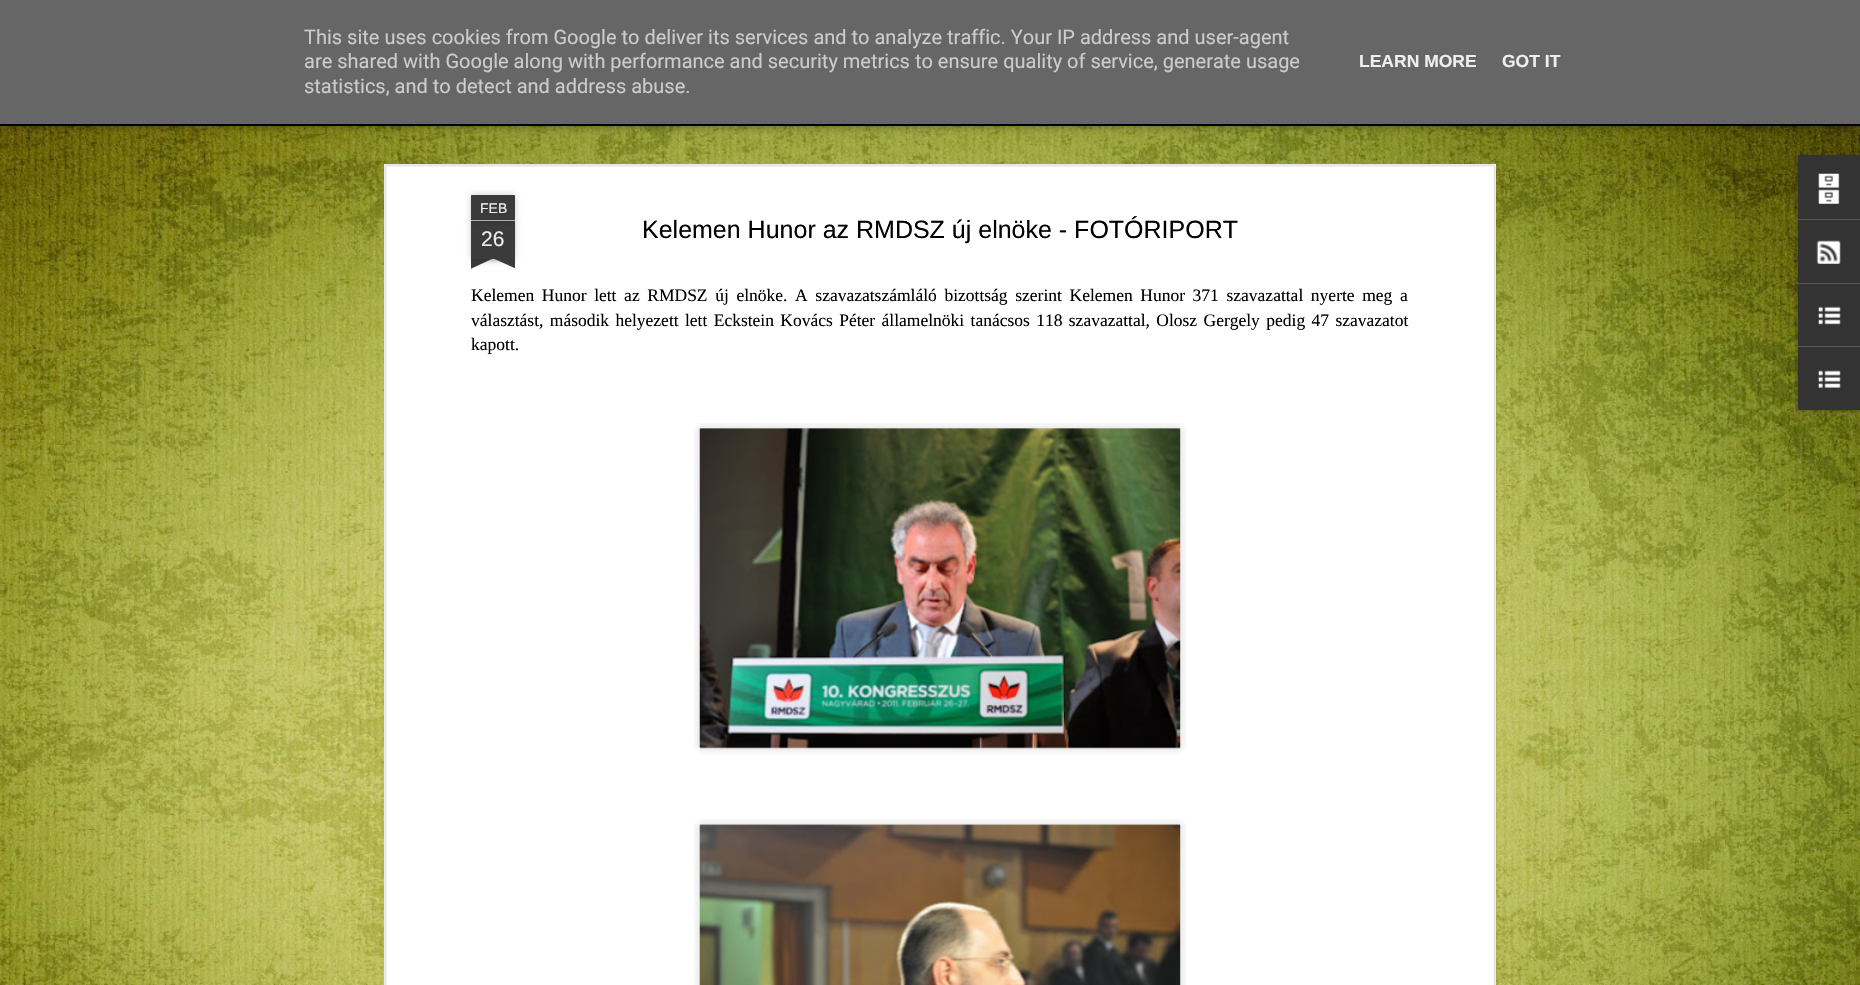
#include "include/core/SkBlurTypes.h"
#include "include/core/SkCanvas.h"
#include "include/core/SkData.h"
#include "include/core/SkFont.h"
#include "include/core/SkFontMgr.h"
#include "include/core/SkImage.h"
#include "include/core/SkMaskFilter.h"
#include "include/core/SkPaint.h"
#include "include/core/SkPathBuilder.h"
#include "include/core/SkTextBlob.h"
#include "include/effects/SkDashPathEffect.h"
#include "include/effects/SkGradientShader.h"
#include "include/utils/SkParsePath.h"

extern sk_sp<SkFontMgr> fontMgr;

void draw(SkCanvas* canvas) {
    SkPaint p;
    p.setAntiAlias(true);
    auto font = [&](const char* family, int weight, float size, bool italic = false) {
        SkFontStyle style(weight, SkFontStyle::kNormal_Width,
            italic ? SkFontStyle::kItalic_Slant : SkFontStyle::kUpright_Slant);
        SkFont result(fontMgr->matchFamilyStyle(family, style), size);
        result.setSubpixel(true);
        return result;
    };
    auto drawTracked = [&](const char* s, float x, float y, const SkFont& font, const SkPaint& ink, float letter, float word) {
        std::vector<SkGlyphID> glyphs(font.countText(s, strlen(s), SkTextEncoding::kUTF8));
        std::vector<float> xs(glyphs.size());
        font.textToGlyphs(s, strlen(s), SkTextEncoding::kUTF8, glyphs);
        font.getXPos(glyphs, xs, x);
        float extra = 0;
        for (size_t i = 0; i < glyphs.size(); i++) {
            xs[i] += extra;
            extra += letter + word * (glyphs[i] == font.unicharToGlyph(' '));
        }
        canvas->drawTextBlob(SkTextBlob::MakeFromPosHGlyphs(glyphs, xs, y, font), 0, 0, ink);
    };
    auto drawPhoto = [&](const char* path, float l, float t, float r, float b) {
        auto image = SkImages::DeferredFromEncodedData(SkData::MakeFromFileName(path));
        canvas->drawImageRect(image, SkRect::MakeLTRB(l, t, r, b), SkSamplingOptions());
    };
    canvas->clear(0xFF000000);
    drawPhoto("media/1.png", 0, 126, 1860, 985);
    p.setColor(0x80000000);
    p.setMaskFilter(SkMaskFilter::MakeBlur(kNormal_SkBlurStyle, 5));
    canvas->drawRect(SkRect::MakeLTRB(0, 81, 1860, 125), p);
    p.setMaskFilter(nullptr);
    p.setColor(0xFF666666);
    canvas->drawRect(SkRect::MakeLTRB(0, 0, 1860, 124), p);
    auto font1 = font("Roboto", 400, 20);
    p.setColor(0xFFCCCCCC);
    {
        const struct { const char* s; float x, y; } items[] = {
            {"This site uses cookies from Google to deliver its services and to analyze traffic. Your IP address and user-agent", 304, 44},
            {"are shared with Google along with performance and security metrics to ensure quality of service, generate usage", 304, 68},
            {"statistics, and to detect and address abuse.", 304, 93},
        };
        for (auto [s, x, y] : items) {
            canvas->drawString(s, x, y, font1, p);
        }
    }
    auto font2 = font("Liberation Sans", 700, 17.5f);
    p.setColor(0xFFEEEEEE);
    canvas->drawString("LEARN MORE", 1359, 67, font2, p);
    canvas->drawString("GOT IT", 1502, 67, font2, p);
    p.setColor(0xFFFFFFFF);
    canvas->drawRect(SkRect::MakeLTRB(384, 164, 1496, 985), p);
    drawPhoto("media/2.png", 384, 164, 1497, 985);
    p.setColor(0x33000000);
    p.setMaskFilter(SkMaskFilter::MakeBlur(kNormal_SkBlurStyle, 3));
    canvas->drawRect(SkRect::MakeLTRB(471, 221, 515, 259), p);
    p.setMaskFilter(nullptr);
    p.setColor(0xFF3B3B3B);
    canvas->drawRect(SkRect::MakeLTRB(471, 221, 515, 259), p);
    p.setColor(0x33000000);
    p.setMaskFilter(SkMaskFilter::MakeBlur(kNormal_SkBlurStyle, 3));
    canvas->drawRoundRect(SkRect::MakeLTRB(471, 195, 515, 221), 1, 1, p);
    p.setMaskFilter(nullptr);
    p.setColor(0xFF3B3B3B);
    canvas->drawPath(SkPathBuilder().moveTo(472, 195).lineTo(514, 195).cubicTo(514.5f, 195, 515, 195.5f, 515, 196).lineTo(515, 221).lineTo(471, 221).lineTo(471, 196).cubicTo(471, 195.5f, 471.5f, 195, 472, 195).close().detach(), p);
    p.setColor(0xFFB1B1B1);
    canvas->drawRect(SkRect::MakeLTRB(471, 220, 515, 221), p);
    auto font3 = font("Liberation Sans", 400, 14);
    p.setColor(0xFFEEEEEE);
    canvas->drawString("FEB", 480, 213, font3, p);
    auto font4 = font("Liberation Sans", 400, 21);
    canvas->drawString("26", 481, 246, font4, p);
    canvas->save();
    canvas->clipRect(SkRect::MakeLTRB(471, 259, 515, 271));
    p.setColor(0x33000000);
    p.setMaskFilter(SkMaskFilter::MakeBlur(kNormal_SkBlurStyle, 3));
    canvas->drawRect(SkRect::MakeLTRB(460, 246, 523, 259), p);
    p.setMaskFilter(nullptr);
    canvas->restore();
    canvas->save();
    canvas->clipRect(SkRect::MakeLTRB(471, 259, 515, 271));
    p.setColor(0xFF3B3B3B);
    canvas->drawPath(SkPathBuilder().moveTo(460, 260).lineTo(517, 234).lineTo(522, 245).lineTo(466, 271).close().detach(), p);
    canvas->restore();
    canvas->save();
    canvas->clipRect(SkRect::MakeLTRB(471, 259, 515, 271));
    p.setColor(0x33000000);
    p.setMaskFilter(SkMaskFilter::MakeBlur(kNormal_SkBlurStyle, 3));
    canvas->drawRect(SkRect::MakeLTRB(464, 246, 526, 259), p);
    p.setMaskFilter(nullptr);
    canvas->restore();
    canvas->save();
    canvas->clipRect(SkRect::MakeLTRB(471, 259, 515, 271));
    p.setColor(0xFF3B3B3B);
    canvas->drawPath(SkPathBuilder().moveTo(469, 234).lineTo(526, 260).lineTo(521, 271).lineTo(464, 245).close().detach(), p);
    canvas->restore();
    auto font5 = font("Liberation Sans", 400, 25);
    p.setColor(0xFF000000);
    canvas->drawString("Kelemen Hunor az RMDSZ új elnöke - FOTÓRIPORT", 642, 238, font5, p);
    auto font6 = font("Liberation Serif", 400, 17.5f);
    drawTracked("Kelemen Hunor lett az RMDSZ új elnöke. A szavazatszámláló bizottság szerint Kelemen Hunor 371 szavazattal nyerte meg a", 471, 301, font6, p, 0, 3.25f);
    drawTracked("választást, második helyezett lett Eckstein Kovács Péter államelnöki tanácsos 118 szavazattal, Olosz Gergely pedig 47 szavazatot", 471, 326, font6, p, 0, 2);
    canvas->drawString("kapott.", 471, 350, font6, p);
    drawPhoto("media/3.png", 694, 423, 1186, 754);
    drawPhoto("media/4.png", 699, 428, 1181, 749);
    drawPhoto("media/5.png", 694, 819, 1186, 985);
    drawPhoto("media/6.png", 699, 824, 1181, 985);
    p.setColor(0x4D000000);
    p.setMaskFilter(SkMaskFilter::MakeBlur(kNormal_SkBlurStyle, 2));
    canvas->drawRoundRect(SkRect::MakeLTRB(1798, 156, 1860, 411), 2.5f, 2.5f, p);
    p.setMaskFilter(nullptr);
    p.setColor(0xFF333333);
    canvas->drawPath(SkPathBuilder().moveTo(1800.5f, 155).lineTo(1860, 155).lineTo(1860, 410).lineTo(1800.5f, 410).cubicTo(1799, 410, 1798, 409, 1798, 407.5f).lineTo(1798, 157.5f).cubicTo(1798, 156, 1799, 155, 1800.5f, 155).close().detach(), p);
    canvas->drawPath(SkPathBuilder().moveTo(1800.5f, 155).lineTo(1860, 155).lineTo(1860, 219).lineTo(1798, 219).lineTo(1798, 157.5f).cubicTo(1798, 156, 1799, 155, 1800.5f, 155).close().detach(), p);
    drawPhoto("media/7.png", 1818, 173, 1840, 204);
    p.setColor(0xFF585858);
    canvas->drawRect(SkRect::MakeLTRB(1798, 219, 1860, 220), p);
    drawPhoto("media/8.png", 1816, 240, 1841, 264);
    canvas->drawRect(SkRect::MakeLTRB(1798, 283, 1860, 284), p);
    drawPhoto("media/9.png", 1818, 306, 1841, 325);
    p.setColor(0xFF333333);
    canvas->drawPath(SkPathBuilder().moveTo(1798, 346).lineTo(1860, 346).lineTo(1860, 410).lineTo(1800.5f, 410).cubicTo(1799, 410, 1798, 409, 1798, 407.5f).close().detach(), p);
    p.setColor(0xFF585858);
    canvas->drawRect(SkRect::MakeLTRB(1798, 346, 1860, 347), p);
    drawPhoto("media/10.png", 1818, 370, 1841, 388);
}
